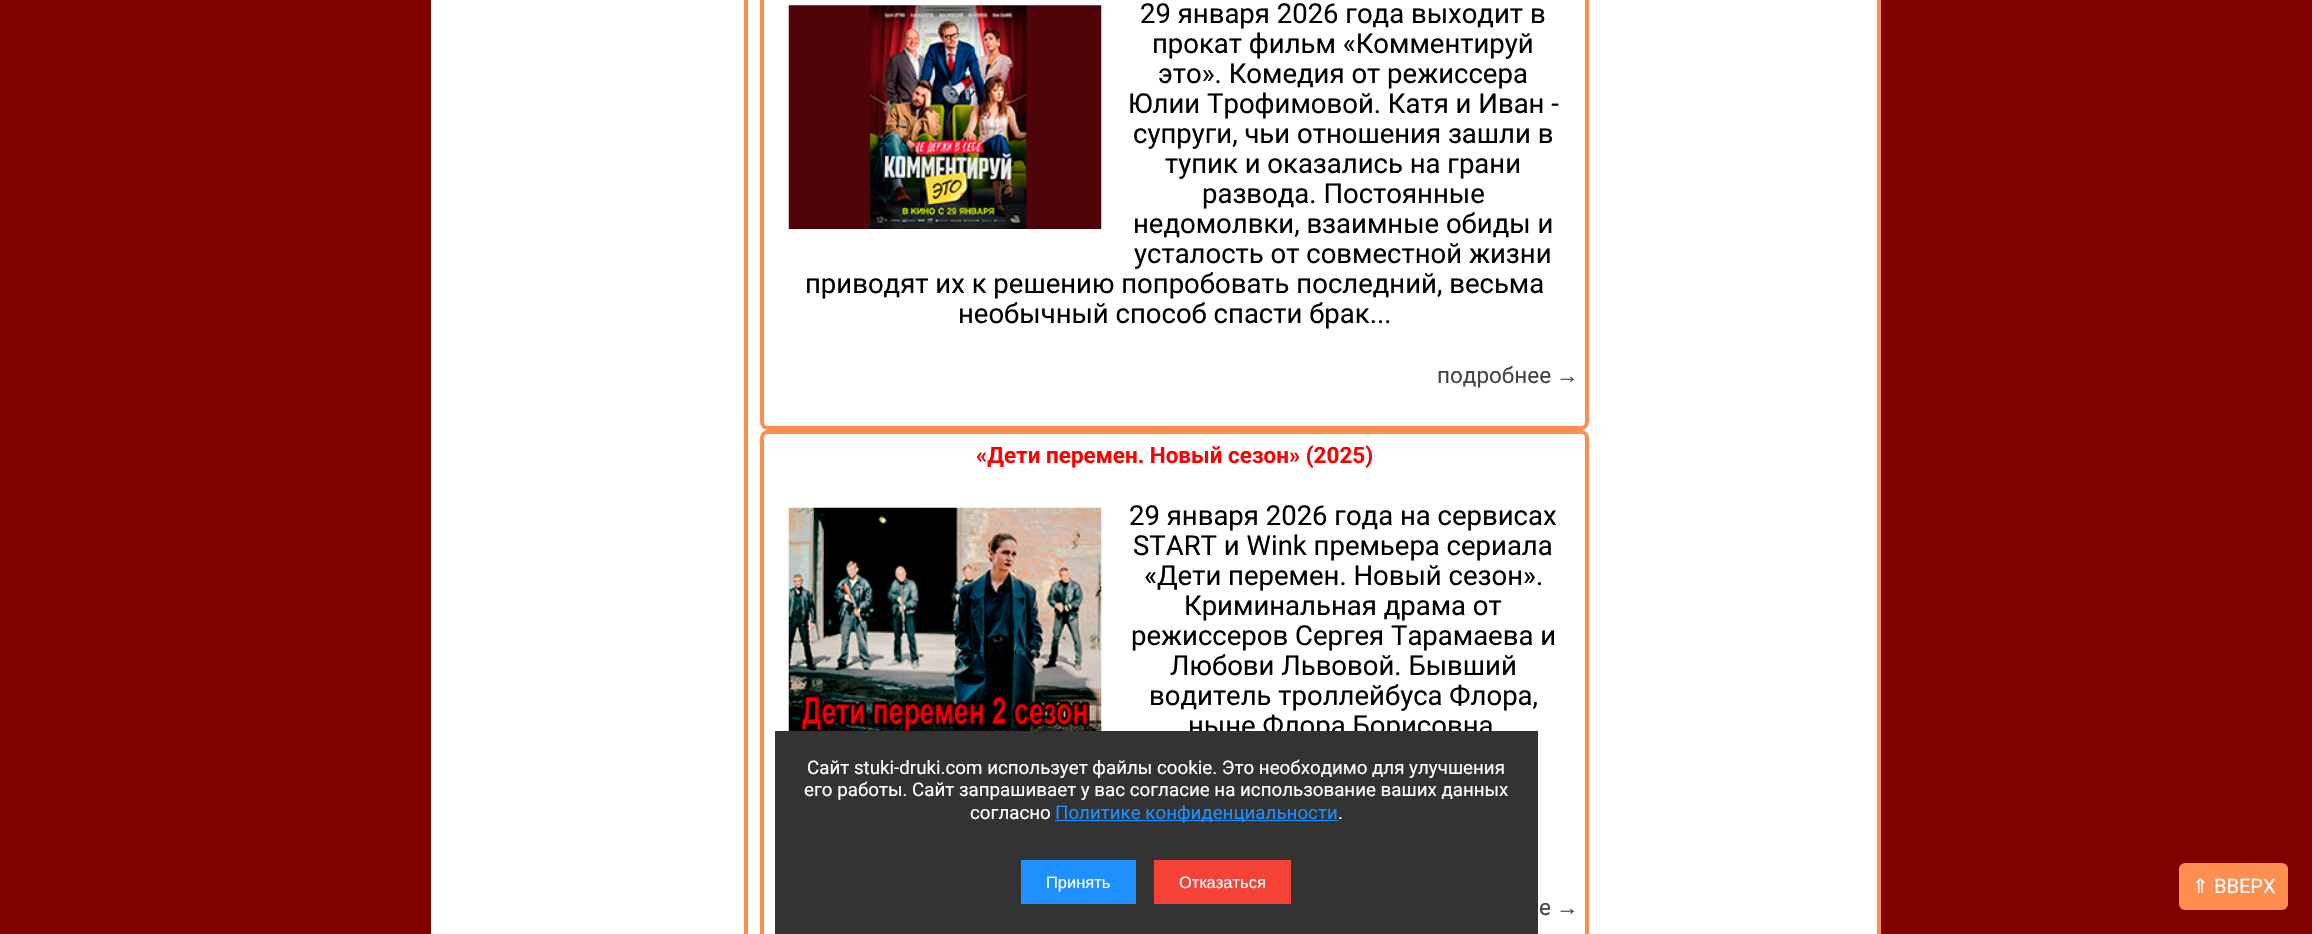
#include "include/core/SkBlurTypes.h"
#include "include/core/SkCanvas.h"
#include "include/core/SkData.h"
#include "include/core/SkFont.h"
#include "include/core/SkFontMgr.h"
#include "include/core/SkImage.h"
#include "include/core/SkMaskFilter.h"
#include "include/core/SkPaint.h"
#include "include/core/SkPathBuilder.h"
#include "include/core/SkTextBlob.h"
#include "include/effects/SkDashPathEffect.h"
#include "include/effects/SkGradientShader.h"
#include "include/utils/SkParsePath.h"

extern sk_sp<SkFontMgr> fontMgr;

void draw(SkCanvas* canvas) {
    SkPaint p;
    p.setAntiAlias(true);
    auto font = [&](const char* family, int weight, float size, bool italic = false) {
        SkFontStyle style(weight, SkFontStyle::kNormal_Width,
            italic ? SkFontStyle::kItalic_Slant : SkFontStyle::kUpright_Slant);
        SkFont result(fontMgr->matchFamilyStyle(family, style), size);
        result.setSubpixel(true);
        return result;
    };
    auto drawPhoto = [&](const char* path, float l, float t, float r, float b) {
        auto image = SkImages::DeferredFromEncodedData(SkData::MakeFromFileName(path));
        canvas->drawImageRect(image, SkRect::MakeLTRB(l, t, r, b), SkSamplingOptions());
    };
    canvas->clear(0xFF800000);
    p.setColor(0xFFFFFFFF);
    canvas->drawRect(SkRect::MakeLTRB(431, 0, 1877, 934), p);
    p.setStyle(SkPaint::kStroke_Style);
    p.setStrokeWidth(4);
    p.setColor(0xFFFF8E51);
    canvas->drawRect(SkRect::MakeLTRB(746, -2, 1879, 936), p);
    canvas->drawRoundRect(SkRect::MakeLTRB(762, -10, 1587, 428), 6, 6, p);
    auto font1 = font("Roboto", 400, 27.5f);
    p.setStyle(SkPaint::kFill_Style);
    p.setColor(0xFF000000);
    {
        const struct { const char* s; float x, y; } items[] = {
            {"29 января 2026 года выходит в", 1140, 23},
            {"прокат фильм «Комментируй", 1152, 53},
            {"это». Комедия от режиссера", 1158, 83},
            {"Юлии Трофимовой. Катя и Иван -", 1128, 113},
            {"супруги, чьи отношения зашли в", 1133, 143},
            {"тупик и оказались на грани", 1165, 173},
            {"развода. Постоянные", 1202, 203},
            {"недомолвки, взаимные обиды и", 1133, 233},
            {"усталость от совместной жизни", 1134, 263},
            {"приводят их к решению попробовать последний, весьма", 805, 293},
            {"необычный способ спасти брак...", 958, 323},
        };
        for (auto [s, x, y] : items) {
            canvas->drawString(s, x, y, font1, p);
        }
    }
    drawPhoto("media/1.png", 788, 5, 1102, 229);
    auto font2 = font("Roboto", 400, 22.5f);
    p.setColor(0xFF444444);
    canvas->drawString("подробнее", 1437, 383, font2, p);
    auto font3 = font("Liberation Sans", 400, 22.5f);
    canvas->drawString("→", 1556, 383, font3, p);
    p.setStyle(SkPaint::kStroke_Style);
    p.setColor(0xFFFF8E51);
    canvas->drawRoundRect(SkRect::MakeLTRB(762, 432, 1587, 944), 6, 6, p);
    auto font4 = font("Roboto", 700, 22.5f);
    p.setStyle(SkPaint::kFill_Style);
    p.setColor(0xFFFF0000);
    canvas->drawString("«Дети перемен. Новый сезон» (2025)", 976, 463, font4, p);
    drawPhoto("media/2.png", 788, 507, 1102, 731);
    p.setColor(0xFF000000);
    {
        const struct { const char* s; float x, y; } items[] = {
            {"29 января 2026 года на сервисах", 1129, 525},
            {"START и Wink премьера сериала", 1133, 555},
            {"«Дети перемен. Новый сезон».", 1144, 585},
            {"Криминальная драма от", 1184, 615},
            {"режиссеров Сергея Тарамаева и", 1131, 645},
            {"Любови Львовой. Бывший", 1170, 675},
            {"водитель троллейбуса Флора,", 1149, 705},
            {"ныне Флора Борисовна", 1188, 735},
        };
        for (auto [s, x, y] : items) {
            canvas->drawString(s, x, y, font1, p);
        }
    }
    p.setColor(0xFF444444);
    canvas->drawString("е", 1539, 915, font2, p);
    canvas->drawString("→", 1556, 915, font3, p);
    p.setColor(0xFF333333);
    canvas->drawRect(SkRect::MakeLTRB(775, 731, 1538, 934), p);
    auto font5 = font("Roboto", 400, 18.75f);
    p.setColor(0xFFFFFFFF);
    {
        const struct { const char* s; float x, y; } items[] = {
            {"Сайт stuki-druki.com использует файлы cookie. Это необходимо для улучшения", 807, 774},
            {"его работы. Сайт запрашивает у вас согласие на использование ваших данных", 804, 796},
            {"согласно", 970, 819},
        };
        for (auto [s, x, y] : items) {
            canvas->drawString(s, x, y, font5, p);
        }
    }
    p.setColor(0xFF1E90FF);
    canvas->drawRect(SkRect::MakeLTRB(1055, 820, 1338, 821), p);
    canvas->drawString("Политике конфиденциальности", 1055, 819, font5, p);
    p.setColor(0xFFFFFFFF);
    canvas->drawString(".", 1338, 819, font5, p);
    p.setColor(0xFF1E90FF);
    canvas->drawRect(SkRect::MakeLTRB(1021, 860, 1136, 904), p);
    auto font6 = font("Liberation Sans", 400, 16.5f);
    p.setColor(0xFFFFFFFF);
    canvas->drawString("Принять", 1046, 888, font6, p);
    p.setColor(0xFFF44336);
    canvas->drawRect(SkRect::MakeLTRB(1154, 860, 1291, 904), p);
    p.setColor(0xFFFFFFFF);
    canvas->drawString("Отказаться", 1179, 888, font6, p);
    p.setColor(0xFFFF8E51);
    canvas->drawRoundRect(SkRect::MakeLTRB(2179, 863, 2288, 910), 6, 6, p);
    auto font7 = font("DejaVu Sans", 400, 20);
    p.setColor(0xFFFFFFFF);
    canvas->drawString("⇑", 2192, 893, font7, p);
    auto font8 = font("Roboto", 400, 20);
    canvas->drawString("ВВЕРХ", 2214, 893, font8, p);
}
